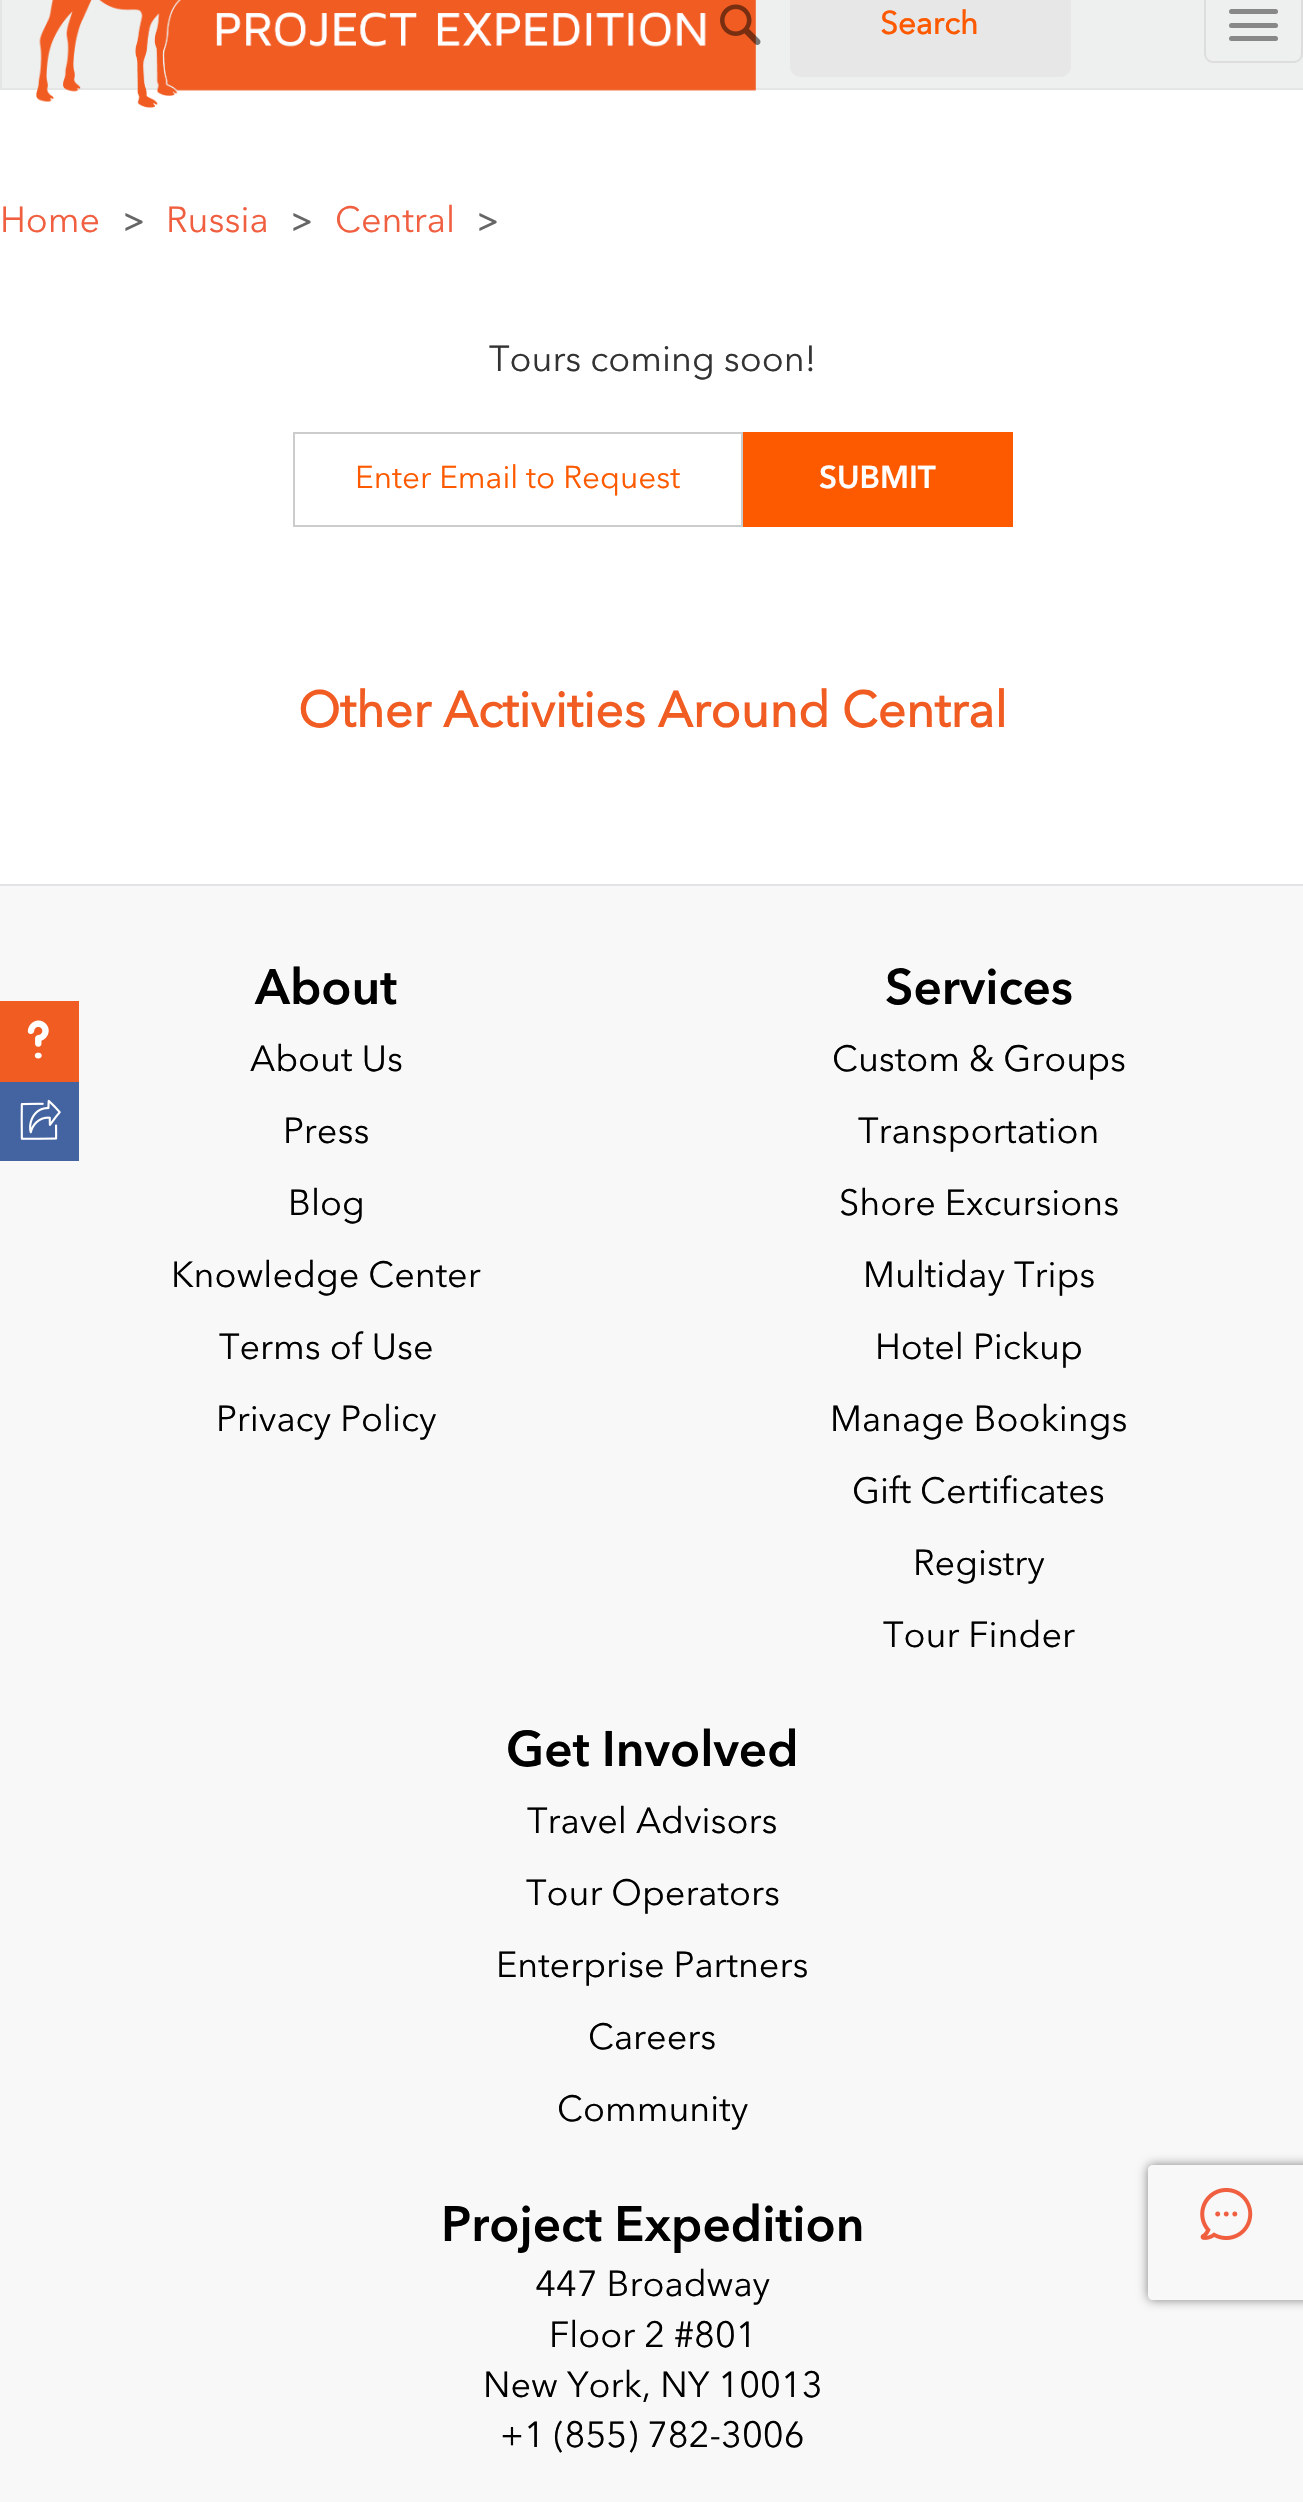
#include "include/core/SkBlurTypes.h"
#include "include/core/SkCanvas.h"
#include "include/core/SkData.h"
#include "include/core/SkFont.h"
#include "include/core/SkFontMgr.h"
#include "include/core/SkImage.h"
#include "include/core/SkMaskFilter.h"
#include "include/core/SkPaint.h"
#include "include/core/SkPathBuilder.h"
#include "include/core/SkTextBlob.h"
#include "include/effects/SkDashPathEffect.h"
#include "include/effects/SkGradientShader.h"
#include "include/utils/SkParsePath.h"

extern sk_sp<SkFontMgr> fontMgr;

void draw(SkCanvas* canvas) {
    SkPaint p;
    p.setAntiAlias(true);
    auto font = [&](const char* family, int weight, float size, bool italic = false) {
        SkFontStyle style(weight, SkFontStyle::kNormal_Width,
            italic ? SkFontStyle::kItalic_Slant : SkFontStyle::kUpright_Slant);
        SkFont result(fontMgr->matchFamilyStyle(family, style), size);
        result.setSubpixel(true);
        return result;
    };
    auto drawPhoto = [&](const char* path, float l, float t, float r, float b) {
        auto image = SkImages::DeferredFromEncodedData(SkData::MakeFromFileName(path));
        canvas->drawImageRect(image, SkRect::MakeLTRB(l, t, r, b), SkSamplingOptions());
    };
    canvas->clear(0xFFFFFFFF);
    p.setColor(0xFFEEEFEF);
    canvas->drawRect(SkRect::MakeLTRB(1, -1, 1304, 89), p);
    p.setStyle(SkPaint::kStroke_Style);
    p.setStrokeWidth(2);
    p.setColor(0xFFE4E5E5);
    canvas->drawRect(SkRect::MakeLTRB(1, -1, 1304, 89), p);
    drawPhoto("media/1.png", 36, 0, 756, 108);
    drawPhoto("media/2.png", 720, 4, 761, 45);
    p.setStyle(SkPaint::kFill_Style);
    p.setColor(0xFFE7E7E7);
    canvas->drawRoundRect(SkRect::MakeLTRB(790, -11, 1071, 77), 11, 11, p);
    auto font1 = font("Avenir Next", 700, 31.5f);
    p.setColor(0xFFFD5A00);
    canvas->drawString("Search", 880, 34, font1, p);
    p.setStyle(SkPaint::kStroke_Style);
    p.setColor(0xFFDDDDDD);
    canvas->drawRoundRect(SkRect::MakeLTRB(1205, -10, 1302, 62), 8, 8, p);
    p.setStyle(SkPaint::kFill_Style);
    p.setColor(0xFF888888);
    canvas->drawRoundRect(SkRect::MakeLTRB(1229, 9, 1278, 14), 2.5f, 2.5f, p);
    canvas->drawRoundRect(SkRect::MakeLTRB(1229, 23, 1278, 28), 2.5f, 2.5f, p);
    canvas->drawRoundRect(SkRect::MakeLTRB(1229, 36, 1278, 41), 2.5f, 2.5f, p);
    auto font2 = font("Avenir Next", 400, 36);
    p.setColor(0xFFF05F40);
    canvas->drawString("Home", 0, 232, font2, p);
    p.setColor(0xFF666666);
    canvas->drawString(">", 123, 232, font1, p);
    p.setColor(0xFFF05F40);
    canvas->drawString("Russia", 166, 232, font2, p);
    p.setColor(0xFF666666);
    canvas->drawString(">", 291, 232, font1, p);
    p.setColor(0xFFF05F40);
    canvas->drawString("Central", 335, 232, font2, p);
    p.setColor(0xFF666666);
    canvas->drawString(">", 477, 232, font1, p);
    p.setColor(0xFF333333);
    canvas->drawString("Tours coming soon!", 489, 371, font2, p);
    p.setStyle(SkPaint::kStroke_Style);
    p.setColor(0xFFCCCCCC);
    canvas->drawRect(SkRect::MakeLTRB(294, 433, 742, 526), p);
    auto font3 = font("Avenir Next", 400, 31.5f);
    p.setStyle(SkPaint::kFill_Style);
    p.setColor(0xFFFD5A00);
    canvas->drawString("Enter Email to Request", 355, 488, font3, p);
    canvas->drawRect(SkRect::MakeLTRB(743, 432, 1013, 527), p);
    auto font4 = font("Avenir Next", 600, 31.5f);
    p.setColor(0xFFFFFFFF);
    canvas->drawString("SUBMIT", 819, 488, font4, p);
    auto font5 = font("Avenir Next", 700, 49.5f);
    p.setColor(0xFFF15C22);
    canvas->drawString("Other Activities Around Central", 298, 727, font5, p);
    p.setColor(0xFFF8F8F8);
    canvas->drawRect(SkRect::MakeLTRB(0, 886, 1303, 2502), p);
    p.setColor(0xFFF15C22);
    canvas->drawRect(SkRect::MakeLTRB(0, 1001, 79, 1082), p);
    drawPhoto("media/3.png", 27, 1020, 49, 1059);
    p.setColor(0xFF4464A1);
    canvas->drawRect(SkRect::MakeLTRB(0, 1082, 79, 1161), p);
    drawPhoto("media/4.png", 20, 1099, 61, 1140);
    p.setColor(0xFFE2E3E5);
    canvas->drawRect(SkRect::MakeLTRB(0, 884, 1303, 886), p);
    auto font6 = font("Avenir Next", 600, 49.5f);
    p.setColor(0xFF000000);
    canvas->drawString("About", 255, 1004, font6, p);
    {
        const struct { const char* s; float x, y; } items[] = {
            {"About Us", 250, 1071},
            {"Press", 283, 1143},
            {"Blog", 288, 1215},
            {"Knowledge Center", 171, 1287},
            {"Terms of Use", 219, 1359},
            {"Privacy Policy", 216, 1431},
        };
        for (auto [s, x, y] : items) {
            canvas->drawString(s, x, y, font2, p);
        }
    }
    canvas->drawString("Services", 885, 1004, font6, p);
    {
        const struct { const char* s; float x, y; } items[] = {
            {"Custom & Groups", 832, 1071},
            {"Transportation", 858, 1143},
            {"Shore Excursions", 839, 1215},
            {"Multiday Trips", 863, 1287},
            {"Hotel Pickup", 875, 1359},
            {"Manage Bookings", 830, 1431},
            {"Gift Certificates", 852, 1503},
            {"Registry", 913, 1575},
            {"Tour Finder", 883, 1647},
        };
        for (auto [s, x, y] : items) {
            canvas->drawString(s, x, y, font2, p);
        }
    }
    canvas->drawString("Get Involved", 506, 1766, font6, p);
    {
        const struct { const char* s; float x, y; } items[] = {
            {"Travel Advisors", 527, 1833},
            {"Tour Operators", 526, 1905},
            {"Enterprise Partners", 496, 1977},
            {"Careers", 588, 2049},
            {"Community", 557, 2121},
        };
        for (auto [s, x, y] : items) {
            canvas->drawString(s, x, y, font2, p);
        }
    }
    canvas->drawString("Project Expedition", 441, 2241, font6, p);
    drawPhoto("media/5.png", 1200, 2187, 1253, 2241);
    {
        const struct { const char* s; float x, y; } items[] = {
            {"447 Broadway", 535, 2296},
            {"Floor 2 #801", 549, 2347},
            {"New York, NY 10013", 483, 2397},
            {"+1 (855) 782-3006", 500, 2447},
        };
        for (auto [s, x, y] : items) {
            canvas->drawString(s, x, y, font2, p);
        }
    }
    canvas->save();
    canvas->clipPath(SkPathBuilder(SkPathFillType::kEvenOdd).moveTo(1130, 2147).lineTo(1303, 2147).lineTo(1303, 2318).lineTo(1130, 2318).close().moveTo(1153, 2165).lineTo(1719, 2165).cubicTo(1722, 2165, 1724, 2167, 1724, 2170).lineTo(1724, 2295).cubicTo(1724, 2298, 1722, 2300, 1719, 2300).lineTo(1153, 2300).cubicTo(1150, 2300, 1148, 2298, 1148, 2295).lineTo(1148, 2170).cubicTo(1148, 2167, 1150, 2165, 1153, 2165).close().detach(), true);
    p.setColor(0xFF808080);
    p.setMaskFilter(SkMaskFilter::MakeBlur(kNormal_SkBlurStyle, 5.5f));
    canvas->drawRoundRect(SkRect::MakeLTRB(1148, 2165, 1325, 2300), 5, 5, p);
    p.setMaskFilter(nullptr);
    canvas->restore();
}
